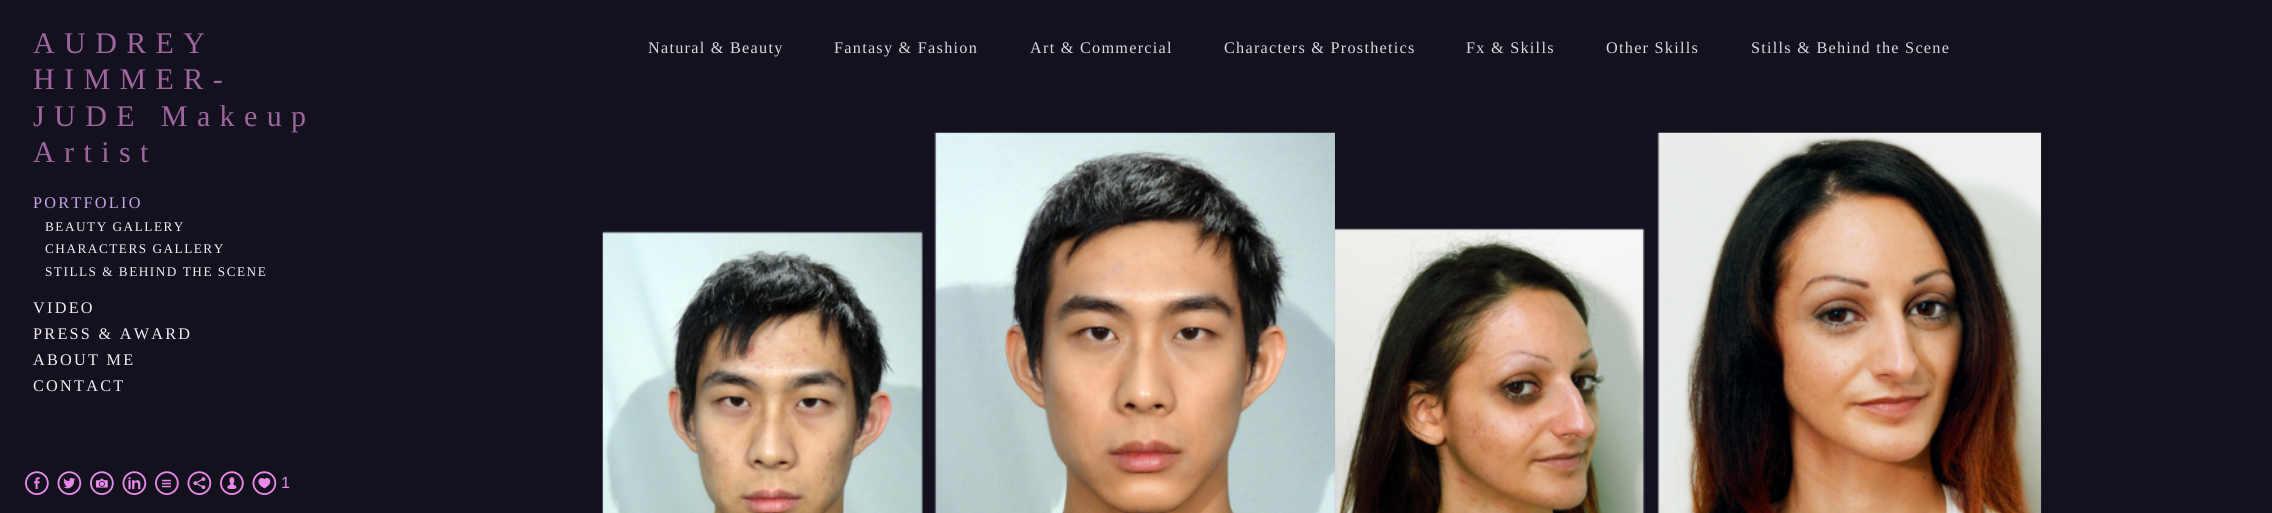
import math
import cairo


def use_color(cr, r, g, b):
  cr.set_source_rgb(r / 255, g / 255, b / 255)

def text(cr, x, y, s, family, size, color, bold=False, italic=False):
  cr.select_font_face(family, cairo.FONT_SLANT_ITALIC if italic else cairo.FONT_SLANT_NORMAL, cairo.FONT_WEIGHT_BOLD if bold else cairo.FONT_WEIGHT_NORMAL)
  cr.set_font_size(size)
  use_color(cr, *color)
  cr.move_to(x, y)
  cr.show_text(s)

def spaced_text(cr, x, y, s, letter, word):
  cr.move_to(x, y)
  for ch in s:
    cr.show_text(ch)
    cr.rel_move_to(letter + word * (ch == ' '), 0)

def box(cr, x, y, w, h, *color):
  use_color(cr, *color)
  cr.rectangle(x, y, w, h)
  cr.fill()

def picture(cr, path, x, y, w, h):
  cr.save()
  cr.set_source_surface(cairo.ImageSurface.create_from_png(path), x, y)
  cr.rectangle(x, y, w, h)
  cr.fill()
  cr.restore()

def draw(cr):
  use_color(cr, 19, 17, 29)
  cr.paint()
  box(cr, 808, 38, 1, 20, 16, 14, 24)
  box(cr, 1004, 38, 1, 20, 16, 14, 24)
  box(cr, 1198, 38, 1, 20, 16, 14, 24)
  box(cr, 1440, 38, 1, 20, 16, 14, 24)
  box(cr, 1580, 38, 1, 20, 16, 14, 24)
  box(cr, 1725, 38, 1, 20, 16, 14, 24)
  picture(cr, "img_01.png", 602, 132, 733, 381)
  picture(cr, "img_02.png", 1335, 132, 707, 381)
  picture(cr, "img_03.png", 25, 471, 24, 24)
  picture(cr, "img_04.png", 57, 471, 25, 24)
  picture(cr, "img_05.png", 90, 471, 24, 24)
  picture(cr, "img_06.png", 122, 471, 25, 24)
  picture(cr, "img_07.png", 155, 471, 24, 24)
  picture(cr, "img_08.png", 187, 471, 25, 24)
  picture(cr, "img_09.png", 220, 471, 24, 24)
  picture(cr, "img_10.png", 252, 471, 25, 24)
  cr.select_font_face("Liberation Serif")
  cr.set_font_size(30)
  use_color(cr, 158, 101, 158)
  spaced_text(cr, 33, 53, "AUDREY", 9.4, 0)
  spaced_text(cr, 33, 89, "HIMMER-", 9.4, 0)
  spaced_text(cr, 33, 126, "JUDE Makeup", 9.4, 0)
  spaced_text(cr, 33, 162, "Artist", 9.4, 0)
  cr.set_font_size(16.25)
  use_color(cr, 200, 162, 235)
  spaced_text(cr, 33, 208, "PORTFOLIO", 2.25, 0)
  cr.set_font_size(13.25)
  use_color(cr, 245, 235, 245)
  spaced_text(cr, 45, 231, "BEAUTY GALLERY", 1.5, 0)
  spaced_text(cr, 45, 253, "CHARACTERS GALLERY", 1.5, 0)
  spaced_text(cr, 45, 276, "STILLS & BEHIND THE SCENE", 1.5, 0)
  cr.set_font_size(16.25)
  spaced_text(cr, 33, 313, "VIDEO", 2.25, 0)
  spaced_text(cr, 33, 339, "PRESS & AWARD", 2.25, 0)
  spaced_text(cr, 33, 365, "ABOUT ME", 2.25, 0)
  spaced_text(cr, 33, 391, "CONTACT", 2.25, 0)
  use_color(cr, 222, 213, 223)
  spaced_text(cr, 648, 53, "Natural & Beauty", 1.25, 0)
  spaced_text(cr, 834, 53, "Fantasy & Fashion", 1.25, 0)
  spaced_text(cr, 1030, 53, "Art & Commercial", 1.25, 0)
  spaced_text(cr, 1224, 53, "Characters & Prosthetics", 1.25, 0)
  spaced_text(cr, 1466, 53, "Fx & Skills", 1.25, 0)
  spaced_text(cr, 1606, 53, "Other Skills", 1.25, 0)
  spaced_text(cr, 1751, 53, "Stills & Behind the Scene", 1.25, 0)
  text(cr, 281, 488, "1", "Liberation Sans", 16.25, (232, 136, 232))


surface = cairo.ImageSurface(cairo.FORMAT_RGB24, 2272, 513)
cr = cairo.Context(surface)
options = cairo.FontOptions()
options.set_hint_metrics(cairo.HINT_METRICS_OFF)
options.set_hint_style(cairo.HINT_STYLE_NONE)
cr.set_font_options(options)
cr.set_miter_limit(4)
draw(cr)
surface.write_to_png("out.png")
